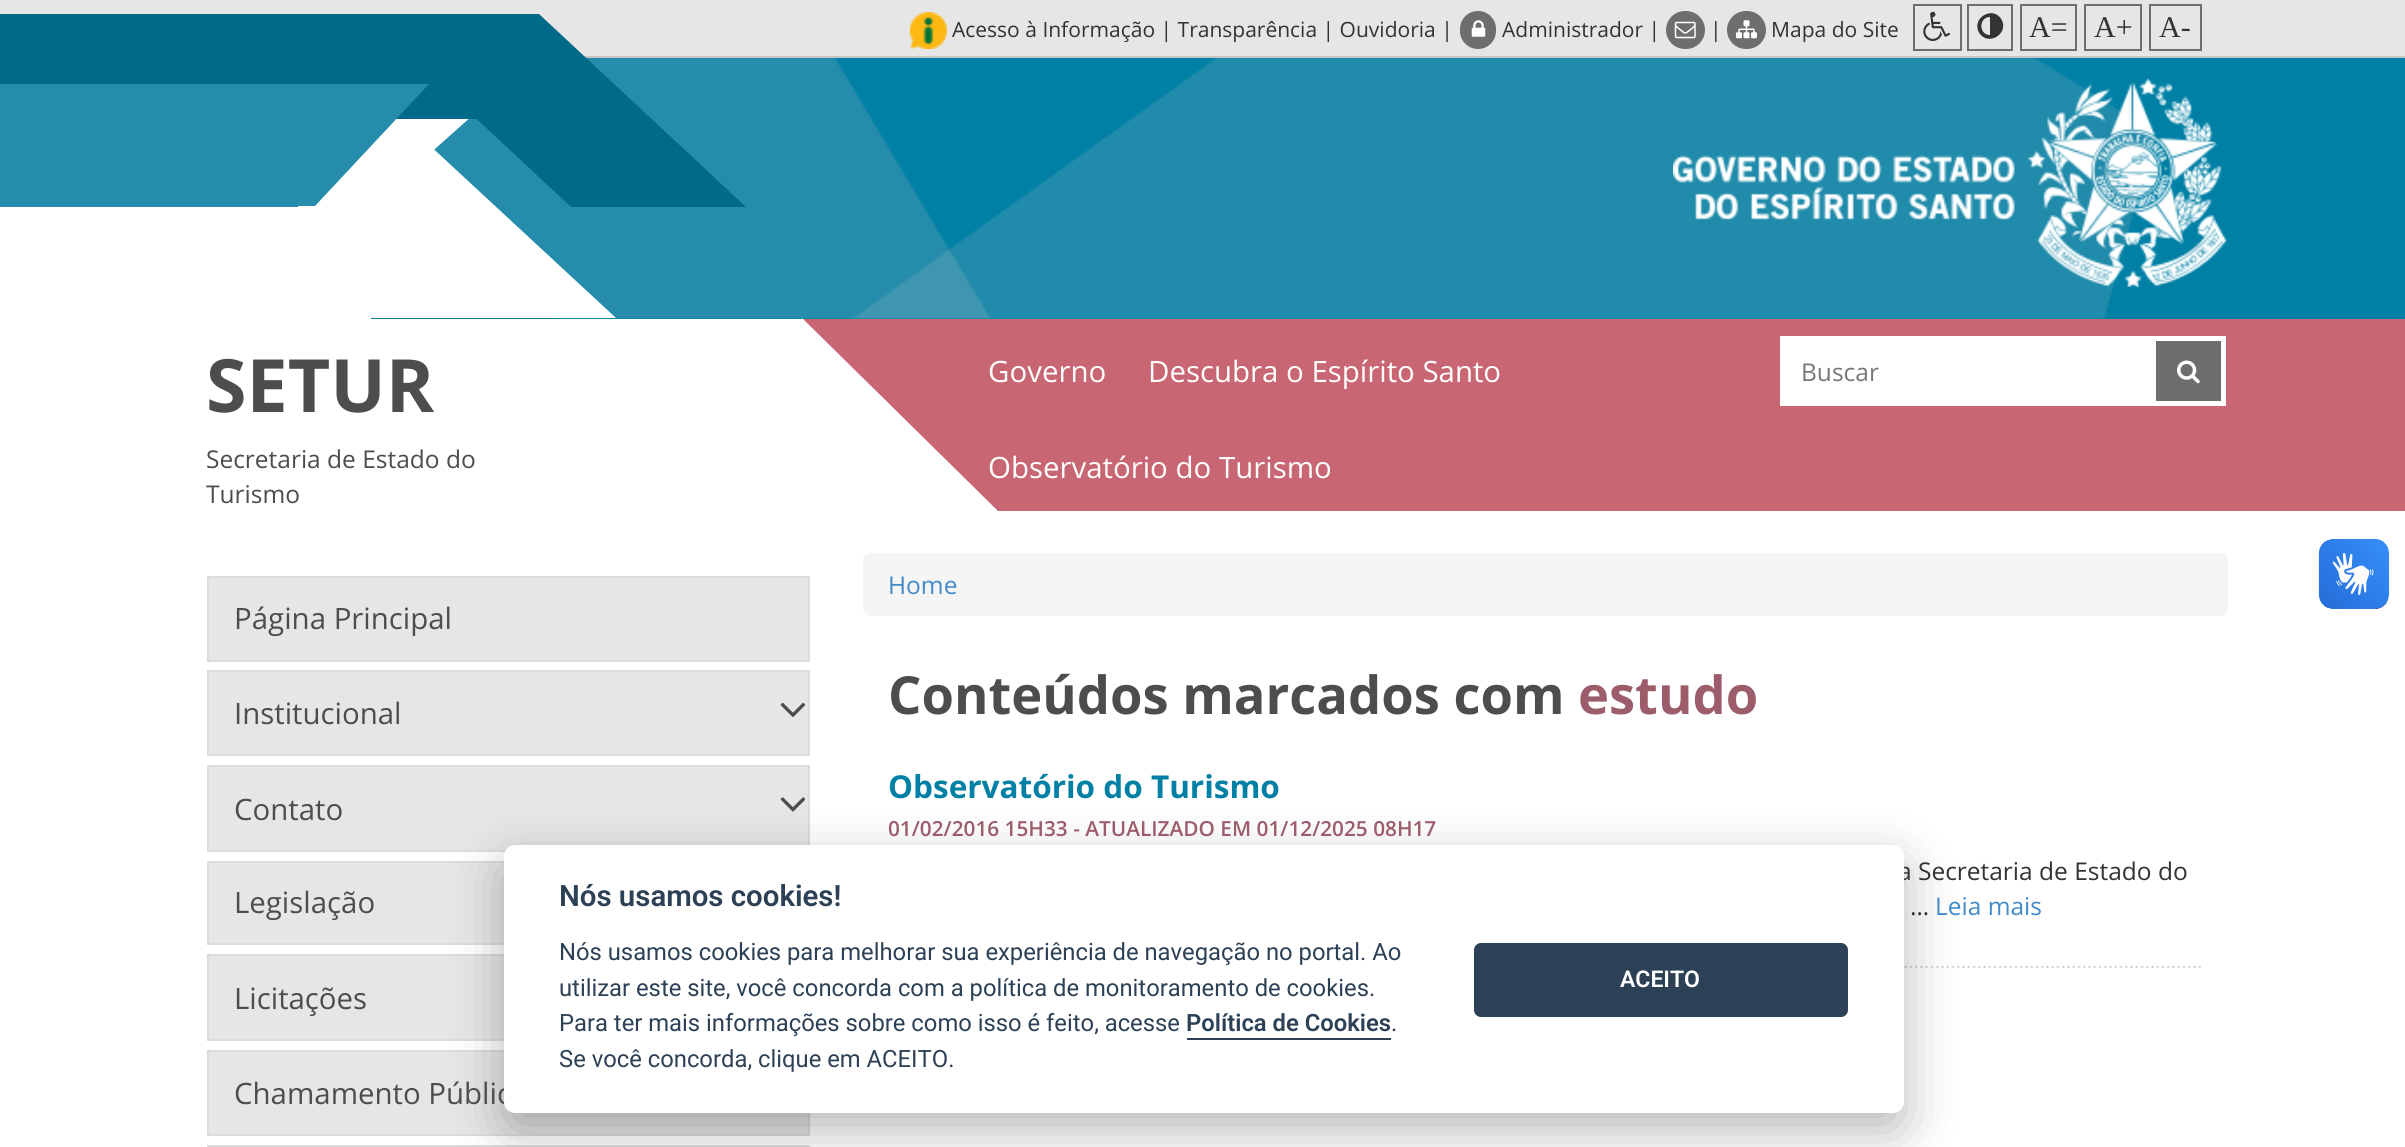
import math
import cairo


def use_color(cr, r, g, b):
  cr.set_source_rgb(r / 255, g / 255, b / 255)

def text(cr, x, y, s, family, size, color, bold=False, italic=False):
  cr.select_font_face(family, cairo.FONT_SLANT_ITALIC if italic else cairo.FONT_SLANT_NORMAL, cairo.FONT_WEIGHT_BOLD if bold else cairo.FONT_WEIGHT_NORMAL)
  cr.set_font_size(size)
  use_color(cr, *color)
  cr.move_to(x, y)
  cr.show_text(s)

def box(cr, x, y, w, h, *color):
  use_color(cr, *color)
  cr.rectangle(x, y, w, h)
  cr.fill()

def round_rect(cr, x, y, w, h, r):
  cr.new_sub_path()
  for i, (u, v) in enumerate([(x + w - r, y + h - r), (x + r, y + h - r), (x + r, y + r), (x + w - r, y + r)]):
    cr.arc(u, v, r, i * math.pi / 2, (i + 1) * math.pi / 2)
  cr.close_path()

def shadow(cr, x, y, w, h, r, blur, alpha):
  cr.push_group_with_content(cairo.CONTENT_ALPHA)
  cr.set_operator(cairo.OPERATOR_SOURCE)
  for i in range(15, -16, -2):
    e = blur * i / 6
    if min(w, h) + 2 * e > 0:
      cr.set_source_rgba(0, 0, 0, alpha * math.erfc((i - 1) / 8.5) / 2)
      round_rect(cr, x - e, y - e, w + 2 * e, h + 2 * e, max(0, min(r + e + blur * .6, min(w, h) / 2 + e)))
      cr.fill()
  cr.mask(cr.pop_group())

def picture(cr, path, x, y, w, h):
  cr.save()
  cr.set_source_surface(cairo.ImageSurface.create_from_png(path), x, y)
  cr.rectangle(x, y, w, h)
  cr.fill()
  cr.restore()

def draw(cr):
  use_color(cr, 255, 255, 255)
  cr.paint()
  box(cr, 371, 58, 2034, 261, 0, 128, 165)
  picture(cr, "img_01.png", 433, 58, 1723, 261)
  use_color(cr, 255, 255, 255)
  cr.new_path()
  cr.move_to(371, 58)
  cr.line_to(537, 58)
  cr.line_to(371, 206)
  cr.close_path()
  cr.fill()
  cr.new_path()
  cr.move_to(616, 318)
  cr.line_to(371, 318)
  cr.line_to(371, 91)
  cr.close_path()
  cr.fill()
  box(cr, 0, 0, 2405, 56, 230, 230, 230)
  box(cr, 0, 14, 477, 105, 0, 106, 136)
  box(cr, 584, 56, 1821, 2, 197, 197, 197)
  use_color(cr, 0, 106, 136)
  cr.new_path()
  cr.move_to(364, 14)
  cr.line_to(539, 14)
  cr.line_to(746, 207)
  cr.line_to(571, 207)
  cr.close_path()
  cr.fill()
  box(cr, 0, 84, 298, 123, 37, 141, 171)
  cr.new_path()
  cr.move_to(131, 84)
  cr.line_to(429, 84)
  cr.line_to(315, 206)
  cr.line_to(131, 206)
  cr.close_path()
  cr.fill()
  picture(cr, "img_02.png", 1673, 78, 553, 209)
  picture(cr, "img_03.png", 910, 12, 37, 37)
  use_color(cr, 110, 110, 110)
  round_rect(cr, 1460, 11, 36, 38, 18)
  cr.fill()
  picture(cr, "img_04.png", 1471, 20, 15, 17)
  round_rect(cr, 1666, 11, 39, 38, 19)
  cr.fill()
  picture(cr, "img_05.png", 1674, 21, 22, 18)
  round_rect(cr, 1727, 11, 39, 38, 19)
  cr.fill()
  picture(cr, "img_06.png", 1736, 20, 21, 19)
  cr.rectangle(1914, 5, 47, 45)
  cr.stroke()
  picture(cr, "img_07.png", 1923, 11, 28, 30)
  cr.rectangle(1968, 5, 44, 45)
  cr.stroke()
  use_color(cr, 51, 51, 51)
  cr.new_path()
  cr.move_to(1990, 35)
  cr.line_to(1990, 17)
  cr.curve_to(1978.5, 17, 1978.5, 35, 1990, 35)
  cr.close_path()
  cr.move_to(2001.5, 19.5)
  cr.curve_to(2009.5, 34, 1987.5, 47, 1979, 32.5)
  cr.curve_to(1971, 18, 1993, 5, 2001.5, 19.5)
  cr.close_path()
  cr.fill()
  cr.rectangle(2021, 5, 55, 45)
  use_color(cr, 110, 110, 110)
  cr.stroke()
  cr.rectangle(2085, 5, 56, 45)
  cr.stroke()
  cr.rectangle(2150, 5, 51, 45)
  cr.stroke()
  use_color(cr, 230, 230, 230)
  cr.rectangle(208, 577, 601, 84)
  cr.fill_preserve()
  use_color(cr, 220, 220, 220)
  cr.stroke()
  use_color(cr, 230, 230, 230)
  cr.rectangle(208, 671, 601, 84)
  cr.fill_preserve()
  use_color(cr, 220, 220, 220)
  cr.stroke()
  picture(cr, "img_08.png", 780, 702, 26, 15)
  use_color(cr, 230, 230, 230)
  cr.rectangle(208, 766, 601, 85)
  cr.fill_preserve()
  use_color(cr, 220, 220, 220)
  cr.stroke()
  picture(cr, "img_09.png", 780, 797, 26, 15)
  box(cr, 209, 863, 295, 80, 230, 230, 230)
  cr.rectangle(208, 862, 601, 82)
  use_color(cr, 220, 220, 220)
  cr.stroke()
  box(cr, 209, 956, 295, 83, 230, 230, 230)
  cr.rectangle(208, 955, 601, 85)
  use_color(cr, 220, 220, 220)
  cr.stroke()
  use_color(cr, 230, 230, 230)
  cr.rectangle(208, 1051, 601, 84)
  cr.fill_preserve()
  use_color(cr, 220, 220, 220)
  cr.stroke()
  cr.rectangle(208, 1146, 601, 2)
  cr.stroke()
  use_color(cr, 245, 245, 245)
  round_rect(cr, 863, 553, 1365, 63, 7)
  cr.fill()
  picture(cr, "img_10.png", 1904, 966, 297, 2)
  box(cr, 803, 319, 1602, 192, 200, 102, 115)
  use_color(cr, 255, 255, 255)
  cr.new_path()
  cr.move_to(998, 511)
  cr.line_to(802, 511)
  cr.line_to(802, 318)
  cr.close_path()
  cr.fill()
  box(cr, 1780, 336, 446, 70, 255, 255, 255)
  box(cr, 2156, 341, 65, 60, 110, 110, 110)
  picture(cr, "img_11.png", 2177, 360, 23, 24)
  picture(cr, "img_12.png", 2318, 539, 71, 70)
  picture(cr, "img_13.png", 2319, 539, 70, 70)
  use_color(cr, 2, 2, 3)
  shadow(cr, 504, 863, 1400, 268, 11, 26, 0.28)
  text(cr, 952, 37, "Acesso à Informação | Transparência | Ouvidoria |", "Open Sans", 21, (51, 51, 51))
  text(cr, 1502, 37, "Administrador |", "Open Sans", 21, (51, 51, 51))
  text(cr, 1710, 37, "|", "Open Sans", 21, (51, 51, 51))
  text(cr, 1771, 37, "Mapa do Site", "Open Sans", 21, (51, 51, 51))
  text(cr, 2029, 37, "A=", "Liberation Serif", 30, (51, 51, 51))
  text(cr, 2094, 37, "A+", "Liberation Serif", 30, (51, 51, 51))
  text(cr, 2159, 37, "A-", "Liberation Serif", 30, (51, 51, 51))
  text(cr, 206, 412, "SETUR", "Open Sans", 73.5, (77, 77, 77), bold=True)
  text(cr, 206, 468, "Secretaria de Estado do", "Open Sans", 24.5, (77, 77, 77))
  text(cr, 206, 503, "Turismo", "Open Sans", 24.5, (77, 77, 77))
  text(cr, 234, 629, "Página Principal", "Open Sans", 29.4, (77, 77, 77))
  text(cr, 234, 724, "Institucional", "Open Sans", 29.4, (77, 77, 77))
  text(cr, 234, 820, "Contato", "Open Sans", 29.4, (77, 77, 77))
  text(cr, 234, 913, "Legislação", "Open Sans", 29.4, (77, 77, 77))
  text(cr, 234, 1009, "Licitações", "Open Sans", 29.4, (77, 77, 77))
  text(cr, 234, 1104, "Chamamento Públic", "Open Sans", 29.4, (77, 77, 77))
  text(cr, 888, 594, "Home", "Open Sans", 24.5, (66, 139, 202))
  text(cr, 888, 714, "Conteúdos marcados com", "Open Sans", 52.5, (77, 77, 77), bold=True)
  text(cr, 1578, 714, "estudo", "Open Sans", 52.5, (156, 92, 106), bold=True)
  text(cr, 888, 798, "Observatório do Turismo", "Open Sans", 31.5, (0, 128, 165), bold=True)
  text(cr, 888, 836, "01/02/2016 15H33 - ATUALIZADO EM 01/12/2025 08H17", "Open Sans SemiBold", 20.8, (156, 92, 106))
  text(cr, 1898, 880, "a Secretaria de Estado do", "Open Sans", 24.5, (51, 51, 51))
  text(cr, 1910, 915, "…", "Open Sans", 24.5, (51, 51, 51))
  text(cr, 1935, 915, "Leia mais", "Open Sans", 24.5, (66, 139, 202))
  text(cr, 988, 382, "Governo", "Open Sans", 29.4, (255, 255, 255))
  text(cr, 1148, 382, "Descubra o Espírito Santo", "Open Sans", 29.4, (255, 255, 255))
  text(cr, 988, 478, "Observatório do Turismo", "Open Sans", 29.4, (255, 255, 255))
  text(cr, 1801, 381, "Buscar", "Open Sans", 24.5, (119, 119, 119))
  use_color(cr, 255, 255, 255)
  round_rect(cr, 504, 845, 1400, 268, 11)
  cr.fill()
  text(cr, 559, 906, "Nós usamos cookies!", "Roboto SemiBold", 29.4, (45, 65, 86))
  text(cr, 559, 960, "Nós usamos cookies para melhorar sua experiência de navegação no portal. Ao", "Roboto", 23.8, (45, 65, 86))
  text(cr, 559, 996, "utilizar este site, você concorda com a política de monitoramento de cookies.", "Roboto", 23.8, (45, 65, 86))
  text(cr, 559, 1031, "Para ter mais informações sobre como isso é feito, acesse", "Roboto", 23.8, (45, 65, 86))
  text(cr, 1186, 1031, "Política de Cookies", "Roboto SemiBold", 23.8, (45, 65, 86))
  box(cr, 1187, 1038, 204, 2, 45, 65, 86)
  text(cr, 1391, 1031, ".", "Roboto", 23.8, (45, 65, 86))
  text(cr, 559, 1067, "Se você concorda, clique em ACEITO.", "Roboto", 23.8, (45, 65, 86))
  round_rect(cr, 1474, 943, 374, 74, 7)
  cr.fill()
  text(cr, 1620, 987, "ACEITO", "Roboto SemiBold", 23, (255, 255, 255))


surface = cairo.ImageSurface(cairo.FORMAT_RGB24, 2405, 1147)
cr = cairo.Context(surface)
options = cairo.FontOptions()
options.set_hint_metrics(cairo.HINT_METRICS_OFF)
options.set_hint_style(cairo.HINT_STYLE_NONE)
cr.set_font_options(options)
cr.set_miter_limit(4)
draw(cr)
surface.write_to_png("out.png")
